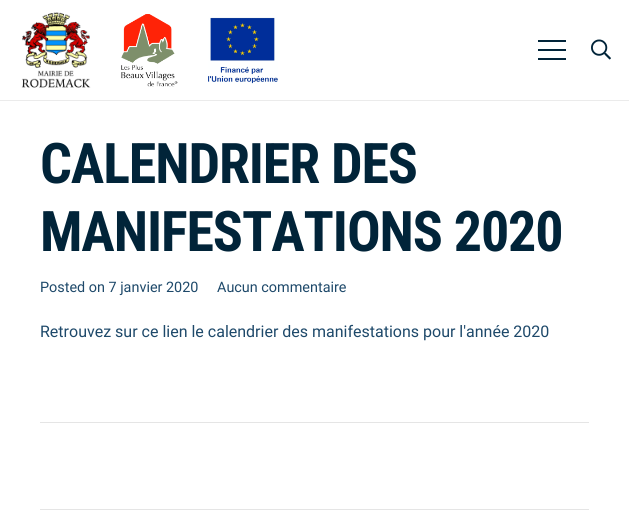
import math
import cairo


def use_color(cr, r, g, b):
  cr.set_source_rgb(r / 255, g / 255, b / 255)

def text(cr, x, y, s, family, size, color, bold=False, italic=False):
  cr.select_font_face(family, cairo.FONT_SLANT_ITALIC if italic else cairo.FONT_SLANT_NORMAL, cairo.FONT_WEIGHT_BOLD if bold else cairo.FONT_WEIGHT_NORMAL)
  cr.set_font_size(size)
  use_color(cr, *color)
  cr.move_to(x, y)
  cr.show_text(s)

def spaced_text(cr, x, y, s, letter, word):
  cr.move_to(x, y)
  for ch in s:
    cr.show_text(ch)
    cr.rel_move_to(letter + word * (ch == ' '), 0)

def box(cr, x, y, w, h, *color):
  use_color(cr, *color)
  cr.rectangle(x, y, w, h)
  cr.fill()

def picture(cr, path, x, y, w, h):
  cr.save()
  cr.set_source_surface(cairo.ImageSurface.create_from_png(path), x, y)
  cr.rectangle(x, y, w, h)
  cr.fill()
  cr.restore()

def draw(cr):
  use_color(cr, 255, 255, 255)
  cr.paint()
  box(cr, 0, 100, 629, 1, 235, 235, 235)
  picture(cr, "img_01.png", 21, 12, 70, 76)
  picture(cr, "img_02.png", 121, 14, 57, 73)
  picture(cr, "img_03.png", 208, 17, 70, 67)
  box(cr, 538, 49, 28, 2, 1, 36, 57)
  box(cr, 538, 40, 28, 2, 1, 36, 57)
  box(cr, 538, 58, 28, 2, 1, 36, 57)
  picture(cr, "img_04.png", 591, 39, 20, 21)
  box(cr, 40, 422, 549, 1, 229, 229, 229)
  box(cr, 40, 509, 549, 1, 229, 229, 229)
  cr.select_font_face("Roboto Condensed", cairo.FONT_SLANT_NORMAL, cairo.FONT_WEIGHT_BOLD)
  cr.set_font_size(56)
  use_color(cr, 1, 36, 57)
  spaced_text(cr, 40, 183, "CALENDRIER DES", -1.1, 0)
  spaced_text(cr, 40, 251, "MANIFESTATIONS 2020", -1.1, 0)
  text(cr, 40, 292, "Posted on 7 janvier 2020", "Roboto", 14.4, (30, 73, 106))
  text(cr, 217, 292, "Aucun commentaire", "Roboto", 14.4, (30, 73, 106))
  text(cr, 40, 337, "Retrouvez sur ce lien le calendrier des manifestations pour l'année 2020", "Roboto", 16, (30, 73, 106))


surface = cairo.ImageSurface(cairo.FORMAT_RGB24, 629, 522)
cr = cairo.Context(surface)
options = cairo.FontOptions()
options.set_hint_metrics(cairo.HINT_METRICS_OFF)
options.set_hint_style(cairo.HINT_STYLE_NONE)
cr.set_font_options(options)
cr.set_miter_limit(4)
draw(cr)
surface.write_to_png("out.png")
